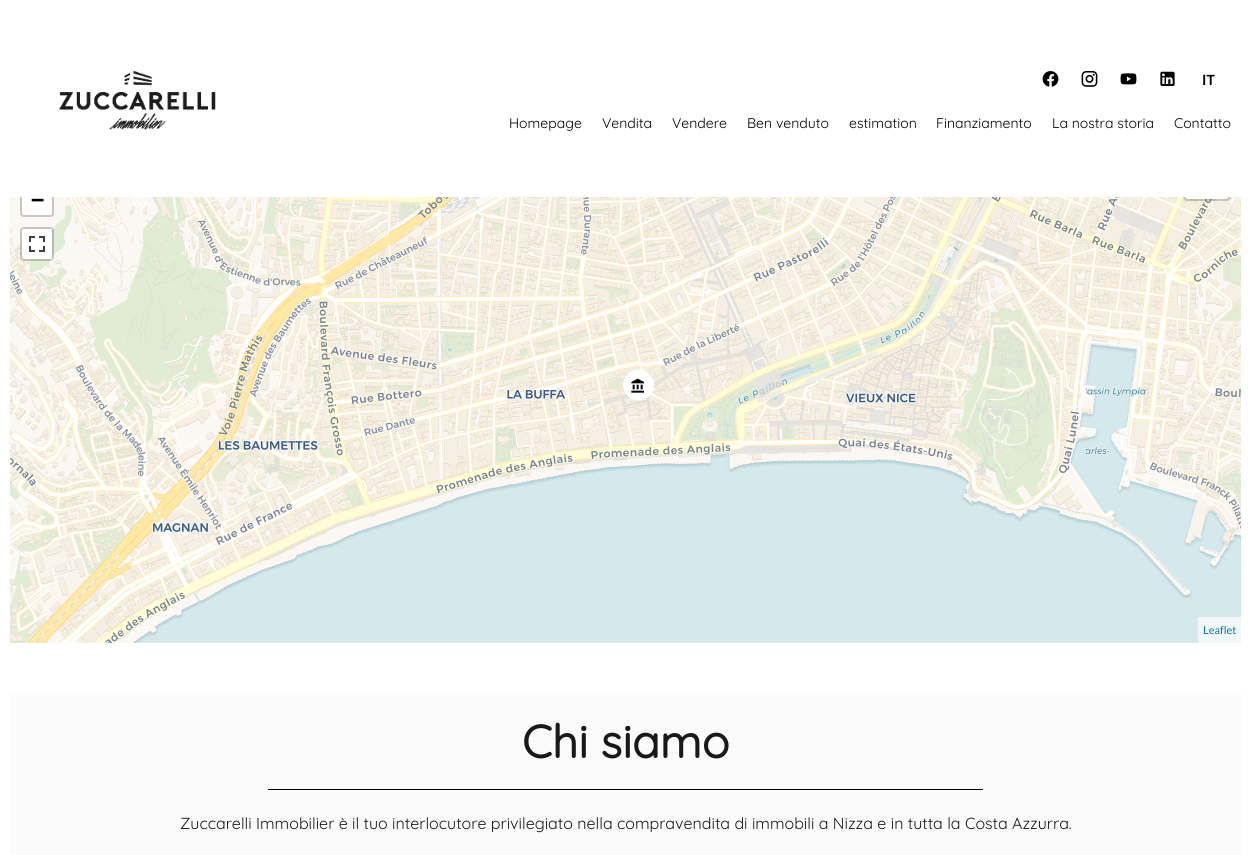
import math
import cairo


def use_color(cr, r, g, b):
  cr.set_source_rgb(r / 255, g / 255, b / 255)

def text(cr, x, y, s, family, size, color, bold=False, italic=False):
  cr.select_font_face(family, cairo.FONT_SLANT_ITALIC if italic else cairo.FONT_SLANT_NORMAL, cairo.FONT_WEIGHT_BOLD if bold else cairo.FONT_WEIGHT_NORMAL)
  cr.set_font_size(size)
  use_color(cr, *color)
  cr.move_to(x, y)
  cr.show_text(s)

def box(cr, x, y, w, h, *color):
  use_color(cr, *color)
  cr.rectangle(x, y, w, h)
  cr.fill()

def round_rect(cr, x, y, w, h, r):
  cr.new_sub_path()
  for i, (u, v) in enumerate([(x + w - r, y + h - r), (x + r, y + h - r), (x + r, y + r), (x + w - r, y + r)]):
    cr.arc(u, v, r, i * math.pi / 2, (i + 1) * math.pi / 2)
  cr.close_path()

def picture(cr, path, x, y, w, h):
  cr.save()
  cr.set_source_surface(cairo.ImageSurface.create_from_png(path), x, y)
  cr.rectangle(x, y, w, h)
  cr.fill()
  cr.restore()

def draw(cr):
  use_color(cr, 255, 255, 255)
  cr.paint()
  picture(cr, "img_06.png", 10, 197, 52, 100)
  round_rect(cr, 21, 154, 32, 62, 3)
  cr.set_source_rgba(0, 0, 0, 0.2)
  cr.stroke()
  use_color(cr, 255, 255, 255)
  cr.new_path()
  cr.move_to(22, 185)
  cr.line_to(52, 185)
  cr.line_to(52, 213)
  cr.curve_to(52, 214, 51, 215, 50, 215)
  cr.line_to(24, 215)
  cr.curve_to(23, 215, 22, 214, 22, 213)
  cr.close_path()
  cr.fill()
  picture(cr, "img_11.png", 1086, 197, 155, 100)
  round_rect(cr, 1185, 155, 44, 44, 3)
  cr.fill()
  round_rect(cr, 1184, 154, 46, 46, 4)
  cr.set_source_rgba(0, 0, 0, 0.2)
  cr.stroke()
  box(cr, 20, 153, 1211, 44, 255, 255, 255)
  picture(cr, "img_01.png", 59, 70, 157, 60)
  picture(cr, "img_02.png", 1042, 71, 17, 16)
  picture(cr, "img_03.png", 1081, 71, 17, 16)
  picture(cr, "img_04.png", 1120, 73, 17, 12)
  picture(cr, "img_05.png", 1160, 71, 15, 15)
  picture(cr, "img_07.png", 62, 197, 256, 100)
  picture(cr, "img_08.png", 318, 197, 256, 100)
  picture(cr, "img_09.png", 574, 197, 256, 100)
  picture(cr, "img_10.png", 830, 197, 256, 100)
  picture(cr, "img_12.png", 10, 297, 52, 256)
  picture(cr, "img_13.png", 62, 297, 256, 256)
  picture(cr, "img_14.png", 318, 297, 256, 256)
  picture(cr, "img_15.png", 574, 297, 256, 256)
  picture(cr, "img_16.png", 830, 297, 256, 256)
  picture(cr, "img_17.png", 1086, 297, 155, 256)
  picture(cr, "img_18.png", 10, 553, 52, 90)
  picture(cr, "img_19.png", 62, 553, 256, 90)
  box(cr, 318, 553, 768, 90, 213, 232, 235)
  picture(cr, "img_20.png", 1086, 553, 155, 90)
  use_color(cr, 255, 255, 255)
  cr.new_path()
  cr.move_to(638.5, 369.5)
  cr.curve_to(620, 369.5, 617.5, 396.5, 635.5, 400)
  cr.curve_to(639.5, 401, 643.5, 400, 647, 398)
  cr.curve_to(651.5, 395, 654, 390, 654, 385)
  cr.curve_to(654, 376.5, 647, 369.5, 638.5, 369.5)
  cr.close_path()
  cr.fill()
  picture(cr, "img_21.png", 631, 378, 13, 15)
  round_rect(cr, 21, 228, 32, 32, 3)
  cr.set_source_rgba(0, 0, 0, 0.2)
  cr.stroke()
  use_color(cr, 255, 255, 255)
  round_rect(cr, 22, 229, 30, 30, 2)
  cr.fill()
  picture(cr, "img_22.png", 29, 236, 16, 16)
  box(cr, 1198, 617, 43, 26, 242, 248, 249)
  box(cr, 10, 693, 1231, 162, 251, 251, 251)
  box(cr, 268, 789, 715, 1, 0, 0, 0)
  text(cr, 1202, 85, "IT", "Lato", 14, (0, 0, 0), bold=True)
  text(cr, 509, 128, "Homepage", "Quicksand Light", 14, (0, 0, 0))
  text(cr, 602, 128, "Vendita", "Quicksand Light", 14, (0, 0, 0))
  text(cr, 672, 128, "Vendere", "Quicksand Light", 14, (0, 0, 0))
  text(cr, 747, 128, "Ben venduto", "Quicksand Light", 14, (0, 0, 0))
  text(cr, 849, 128, "estimation", "Quicksand Light", 14, (0, 0, 0))
  text(cr, 936, 128, "Finanziamento", "Quicksand Light", 14, (0, 0, 0))
  text(cr, 1052, 128, "La nostra storia", "Quicksand Light", 14, (0, 0, 0))
  text(cr, 1174, 128, "Contatto", "Quicksand Light", 14, (0, 0, 0))
  text(cr, 31, 207, "−", "DejaVu Sans Mono", 22, (0, 0, 0), bold=True)
  text(cr, 1203, 634, "Leaflet", "Lato", 11, (0, 120, 168))
  text(cr, 522, 758, "Chi siamo", "Quicksand", 46, (25, 25, 25), bold=True)
  text(cr, 180, 829, "Zuccarelli Immobilier è il tuo interlocutore privilegiato nella compravendita di immobili a Nizza e in tutta la Costa Azzurra.", "Quicksand Light", 16, (25, 25, 25))


surface = cairo.ImageSurface(cairo.FORMAT_RGB24, 1251, 855)
cr = cairo.Context(surface)
options = cairo.FontOptions()
options.set_hint_metrics(cairo.HINT_METRICS_OFF)
options.set_hint_style(cairo.HINT_STYLE_NONE)
cr.set_font_options(options)
cr.set_miter_limit(4)
draw(cr)
surface.write_to_png("out.png")
